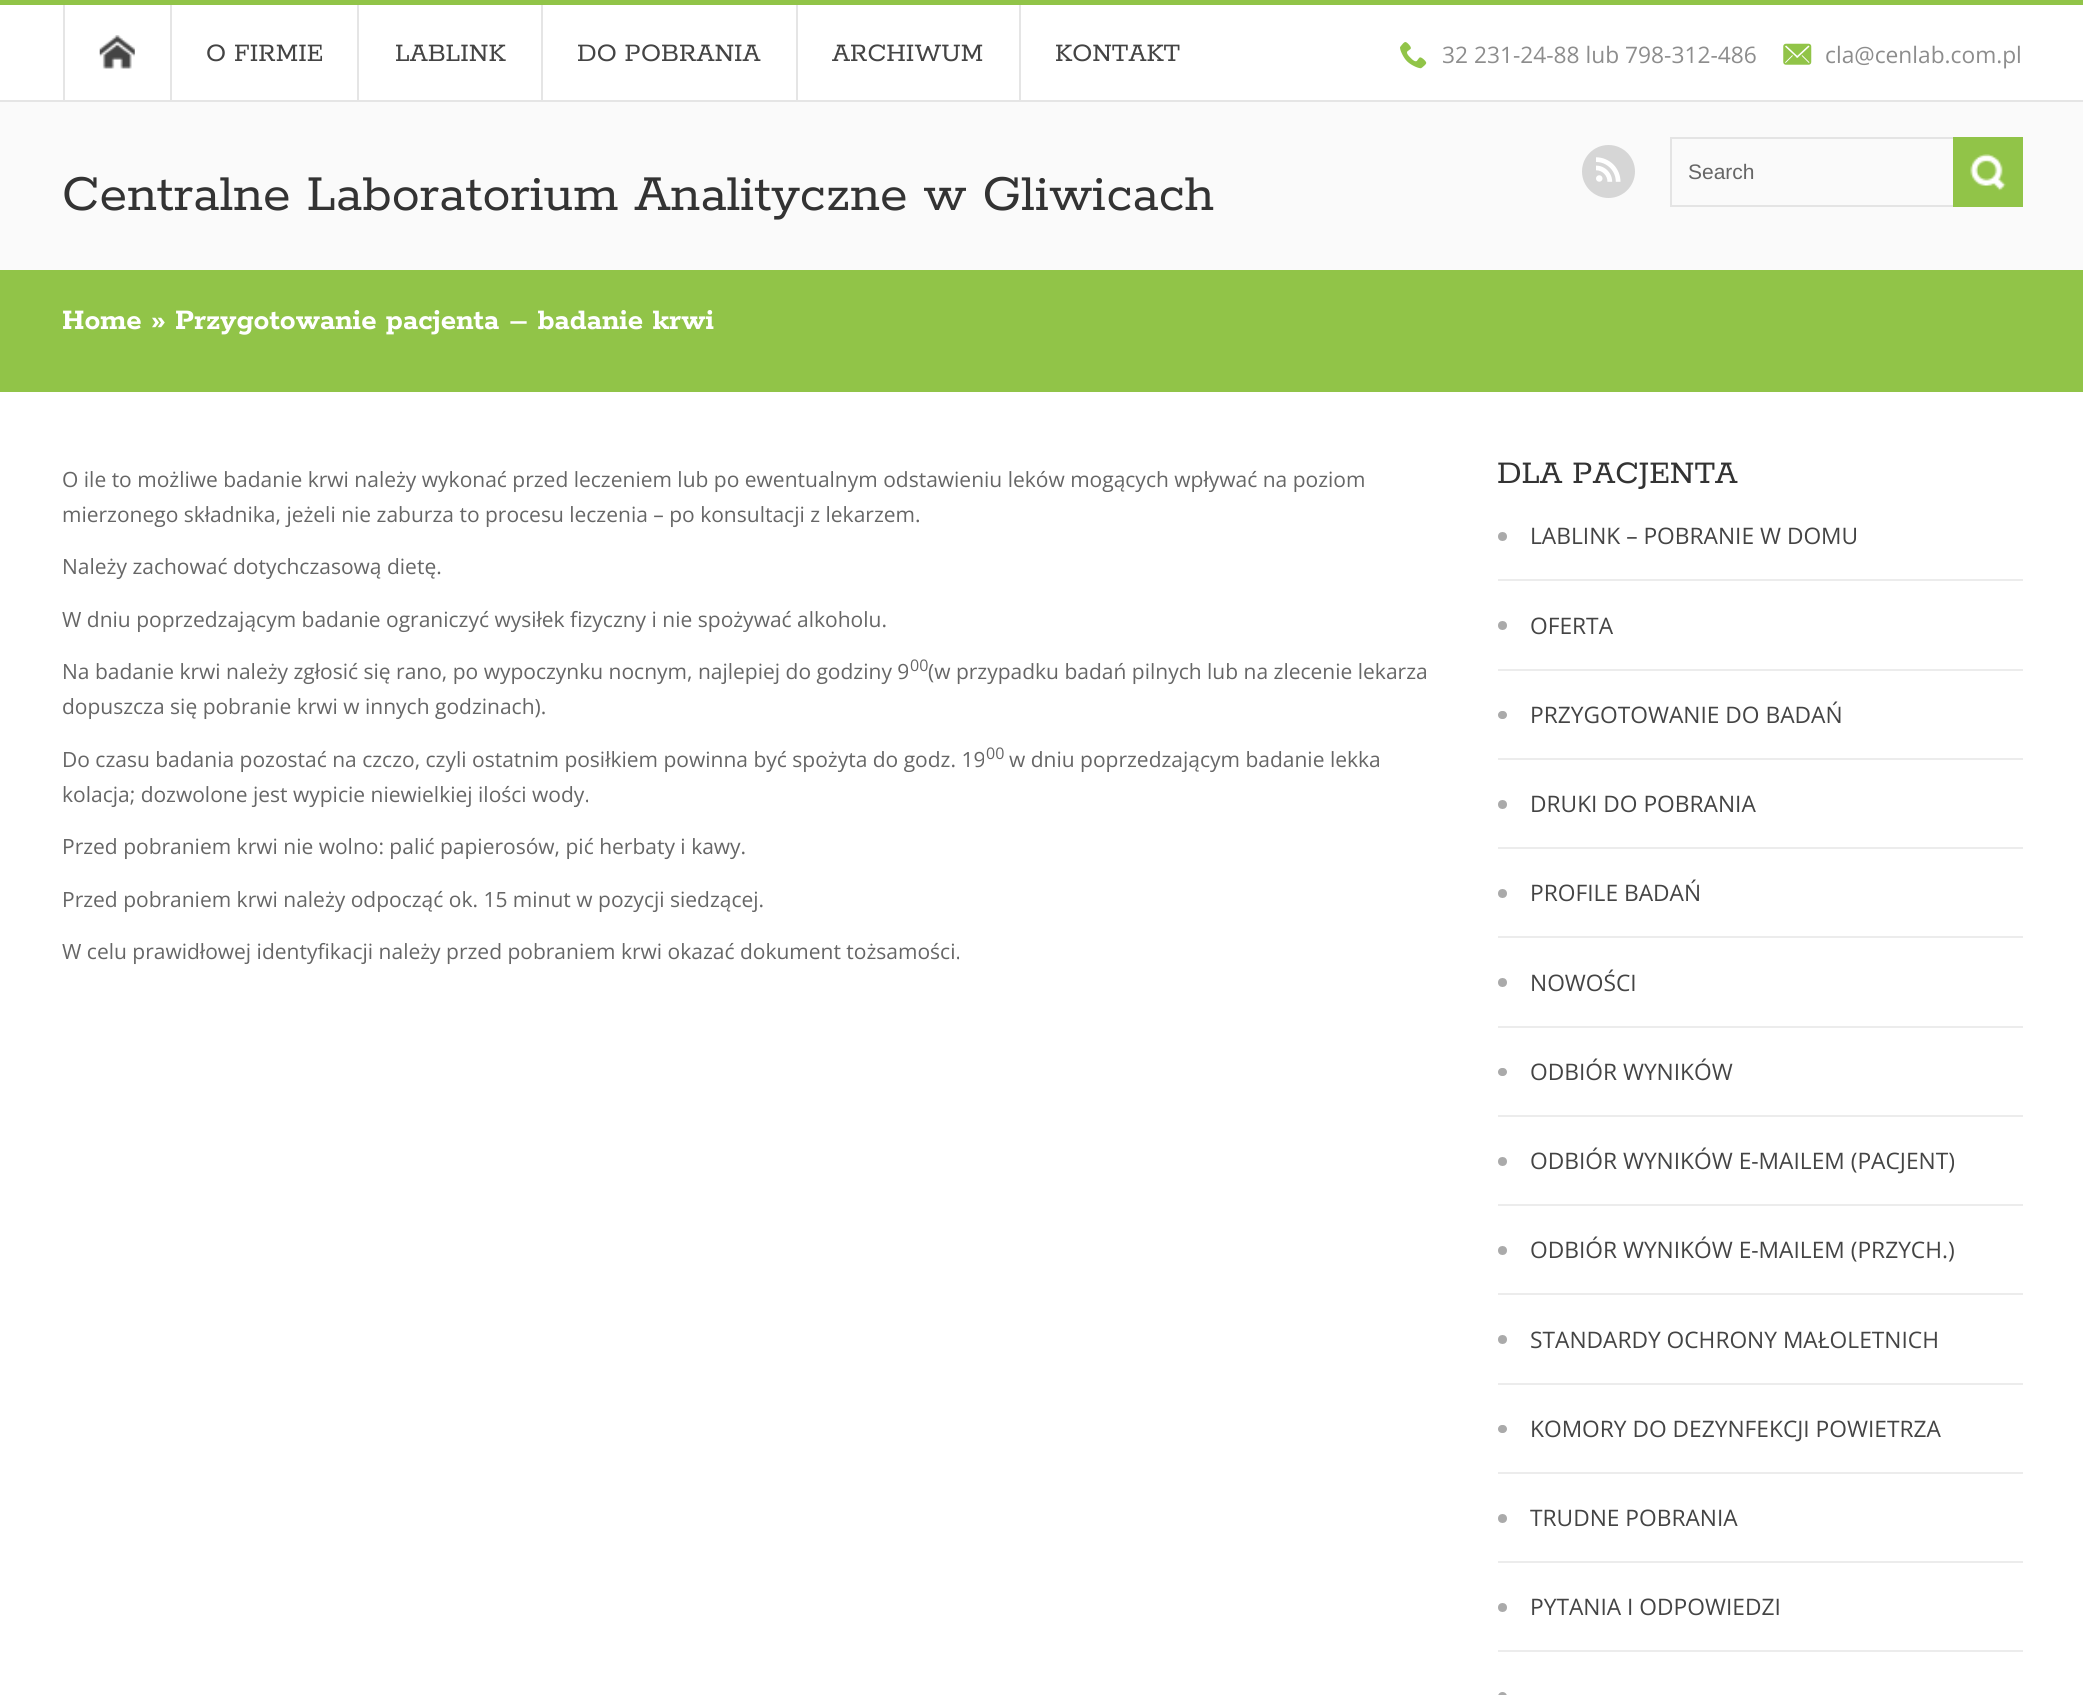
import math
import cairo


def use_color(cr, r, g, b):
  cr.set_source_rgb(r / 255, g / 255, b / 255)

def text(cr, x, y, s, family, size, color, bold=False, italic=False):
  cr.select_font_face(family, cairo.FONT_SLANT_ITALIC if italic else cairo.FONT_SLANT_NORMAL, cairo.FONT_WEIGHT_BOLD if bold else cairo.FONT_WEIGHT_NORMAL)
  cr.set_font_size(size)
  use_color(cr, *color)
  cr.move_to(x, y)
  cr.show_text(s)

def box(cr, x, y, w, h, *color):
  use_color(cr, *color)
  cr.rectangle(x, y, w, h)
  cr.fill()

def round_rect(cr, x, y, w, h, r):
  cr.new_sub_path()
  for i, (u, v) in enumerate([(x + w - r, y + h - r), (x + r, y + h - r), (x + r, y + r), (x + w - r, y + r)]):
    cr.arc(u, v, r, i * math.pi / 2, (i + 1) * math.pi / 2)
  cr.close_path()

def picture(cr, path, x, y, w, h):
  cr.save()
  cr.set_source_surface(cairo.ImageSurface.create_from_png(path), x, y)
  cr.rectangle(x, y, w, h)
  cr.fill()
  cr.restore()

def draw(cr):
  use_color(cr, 255, 255, 255)
  cr.paint()
  box(cr, 0, 0, 2083, 5, 145, 196, 72)
  box(cr, 0, 100, 2083, 2, 229, 229, 229)
  picture(cr, "img_01.png", 99, 35, 36, 34)
  box(cr, 63, 5, 2, 95, 229, 229, 229)
  box(cr, 170, 5, 2, 95, 229, 229, 229)
  box(cr, 357, 5, 2, 95, 229, 229, 229)
  box(cr, 541, 5, 2, 95, 229, 229, 229)
  box(cr, 796, 5, 2, 95, 229, 229, 229)
  box(cr, 1019, 5, 2, 95, 229, 229, 229)
  picture(cr, "img_02.png", 1400, 42, 27, 27)
  picture(cr, "img_03.png", 1783, 43, 29, 22)
  box(cr, 0, 102, 2083, 168, 250, 250, 250)
  use_color(cr, 214, 214, 214)
  cr.arc(1608.5, 171.5, 26.5, 0, 2 * math.pi)
  cr.fill()
  picture(cr, "img_04.png", 1596, 157, 25, 25)
  cr.rectangle(1671, 138, 351, 68)
  use_color(cr, 228, 228, 228)
  cr.stroke()
  box(cr, 1953, 137, 70, 70, 145, 196, 72)
  picture(cr, "img_05.png", 1970, 154, 36, 37)
  box(cr, 0, 270, 2083, 122, 145, 196, 72)
  box(cr, 1498, 579, 525, 2, 236, 236, 236)
  use_color(cr, 170, 170, 170)
  cr.arc(1502.5, 536.5, 4.5, 0, 2 * math.pi)
  cr.fill()
  box(cr, 1498, 669, 525, 2, 236, 236, 236)
  use_color(cr, 170, 170, 170)
  cr.arc(1502.5, 625.5, 4.5, 0, 2 * math.pi)
  cr.fill()
  box(cr, 1498, 758, 525, 2, 236, 236, 236)
  use_color(cr, 170, 170, 170)
  round_rect(cr, 1498, 711, 9, 8, 4)
  cr.fill()
  box(cr, 1498, 847, 525, 2, 236, 236, 236)
  use_color(cr, 170, 170, 170)
  cr.arc(1502.5, 804.5, 4.5, 0, 2 * math.pi)
  cr.fill()
  box(cr, 1498, 936, 525, 2, 236, 236, 236)
  use_color(cr, 170, 170, 170)
  cr.arc(1502.5, 893.5, 4.5, 0, 2 * math.pi)
  cr.fill()
  box(cr, 1498, 1026, 525, 2, 236, 236, 236)
  use_color(cr, 170, 170, 170)
  cr.arc(1502.5, 982.5, 4.5, 0, 2 * math.pi)
  cr.fill()
  box(cr, 1498, 1115, 525, 2, 236, 236, 236)
  use_color(cr, 170, 170, 170)
  round_rect(cr, 1498, 1068, 9, 8, 4)
  cr.fill()
  box(cr, 1498, 1204, 525, 2, 236, 236, 236)
  use_color(cr, 170, 170, 170)
  cr.arc(1502.5, 1161.5, 4.5, 0, 2 * math.pi)
  cr.fill()
  box(cr, 1498, 1293, 525, 2, 236, 236, 236)
  use_color(cr, 170, 170, 170)
  cr.arc(1502.5, 1250.5, 4.5, 0, 2 * math.pi)
  cr.fill()
  box(cr, 1498, 1383, 525, 2, 236, 236, 236)
  use_color(cr, 170, 170, 170)
  cr.arc(1502.5, 1339.5, 4.5, 0, 2 * math.pi)
  cr.fill()
  box(cr, 1498, 1472, 525, 2, 236, 236, 236)
  use_color(cr, 170, 170, 170)
  round_rect(cr, 1498, 1425, 9, 8, 4)
  cr.fill()
  box(cr, 1498, 1561, 525, 2, 236, 236, 236)
  use_color(cr, 170, 170, 170)
  cr.arc(1502.5, 1518.5, 4.5, 0, 2 * math.pi)
  cr.fill()
  box(cr, 1498, 1650, 525, 2, 236, 236, 236)
  use_color(cr, 170, 170, 170)
  cr.arc(1502.5, 1607.5, 4.5, 0, 2 * math.pi)
  cr.fill()
  round_rect(cr, 1498, 1692, 9, 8, 4.5)
  cr.fill()
  text(cr, 206, 61, "O FIRMIE", "Rokkitt", 28, (68, 68, 68))
  text(cr, 395, 61, "LABLINK", "Rokkitt", 28, (68, 68, 68))
  text(cr, 577, 61, "DO POBRANIA", "Rokkitt", 28, (68, 68, 68))
  text(cr, 832, 61, "ARCHIWUM", "Rokkitt", 28, (68, 68, 68))
  text(cr, 1055, 61, "KONTAKT", "Rokkitt", 28, (68, 68, 68))
  text(cr, 1442, 63, "32 231-24-88 lub 798-312-486", "Open Sans", 22.75, (141, 141, 141))
  text(cr, 1825, 63, "cla@cenlab.com.pl", "Open Sans", 22.75, (141, 141, 141))
  text(cr, 1688, 179, "Search", "Liberation Sans", 21, (102, 102, 102))
  text(cr, 62, 210, "Centralne Laboratorium Analityczne w Gliwicach", "Rokkitt", 56, (51, 51, 51))
  text(cr, 62, 329, "Home » Przygotowanie pacjenta – badanie krwi", "Rokkitt", 31.5, (255, 255, 255), bold=True)
  text(cr, 62, 487, "O ile to możliwe badanie krwi należy wykonać przed leczeniem lub po ewentualnym odstawieniu leków mogących wpływać na poziom", "Open Sans", 21, (102, 102, 102))
  text(cr, 62, 522, "mierzonego składnika, jeżeli nie zaburza to procesu leczenia – po konsultacji z lekarzem.", "Open Sans", 21, (102, 102, 102))
  text(cr, 62, 574, "Należy zachować dotychczasową dietę.", "Open Sans", 21, (102, 102, 102))
  text(cr, 62, 627, "W dniu poprzedzającym badanie ograniczyć wysiłek fizyczny i nie spożywać alkoholu.", "Open Sans", 21, (102, 102, 102))
  text(cr, 62, 679, "Na badanie krwi należy zgłosić się rano, po wypoczynku nocnym, najlepiej do godziny 9", "Open Sans", 21, (102, 102, 102))
  text(cr, 910, 671, "00", "Open Sans", 16, (102, 102, 102))
  text(cr, 928, 679, "(w przypadku badań pilnych lub na zlecenie lekarza", "Open Sans", 21, (102, 102, 102))
  text(cr, 62, 714, "dopuszcza się pobranie krwi w innych godzinach).", "Open Sans", 21, (102, 102, 102))
  text(cr, 62, 767, "Do czasu badania pozostać na czczo, czyli ostatnim posiłkiem powinna być spożyta do godz. 19", "Open Sans", 21, (102, 102, 102))
  text(cr, 986, 759, "00", "Open Sans", 16, (102, 102, 102))
  text(cr, 1009, 767, "w dniu poprzedzającym badanie lekka", "Open Sans", 21, (102, 102, 102))
  text(cr, 62, 802, "kolacja; dozwolone jest wypicie niewielkiej ilości wody.", "Open Sans", 21, (102, 102, 102))
  text(cr, 62, 854, "Przed pobraniem krwi nie wolno: palić papierosów, pić herbaty i kawy.", "Open Sans", 21, (102, 102, 102))
  text(cr, 62, 907, "Przed pobraniem krwi należy odpocząć ok. 15 minut w pozycji siedzącej.", "Open Sans", 21, (102, 102, 102))
  text(cr, 62, 959, "W celu prawidłowej identyfikacji należy przed pobraniem krwi okazać dokument tożsamości.", "Open Sans", 21, (102, 102, 102))
  text(cr, 1497, 483, "DLA PACJENTA", "Rokkitt", 35, (51, 51, 51))
  text(cr, 1530, 544, "LABLINK – POBRANIE W DOMU", "Open Sans", 22.75, (68, 68, 68))
  text(cr, 1530, 634, "OFERTA", "Open Sans", 22.75, (68, 68, 68))
  text(cr, 1530, 723, "PRZYGOTOWANIE DO BADAŃ", "Open Sans", 22.75, (68, 68, 68))
  text(cr, 1530, 812, "DRUKI DO POBRANIA", "Open Sans", 22.75, (68, 68, 68))
  text(cr, 1530, 901, "PROFILE BADAŃ", "Open Sans", 22.75, (68, 68, 68))
  text(cr, 1530, 991, "NOWOŚCI", "Open Sans", 22.75, (68, 68, 68))
  text(cr, 1530, 1080, "ODBIÓR WYNIKÓW", "Open Sans", 22.75, (68, 68, 68))
  text(cr, 1530, 1169, "ODBIÓR WYNIKÓW E-MAILEM (PACJENT)", "Open Sans", 22.75, (68, 68, 68))
  text(cr, 1530, 1258, "ODBIÓR WYNIKÓW E-MAILEM (PRZYCH.)", "Open Sans", 22.75, (68, 68, 68))
  text(cr, 1530, 1348, "STANDARDY OCHRONY MAŁOLETNICH", "Open Sans", 22.75, (68, 68, 68))
  text(cr, 1530, 1437, "KOMORY DO DEZYNFEKCJI POWIETRZA", "Open Sans", 22.75, (68, 68, 68))
  text(cr, 1530, 1526, "TRUDNE POBRANIA", "Open Sans", 22.75, (68, 68, 68))
  text(cr, 1530, 1615, "PYTANIA I ODPOWIEDZI", "Open Sans", 22.75, (68, 68, 68))


surface = cairo.ImageSurface(cairo.FORMAT_RGB24, 2083, 1695)
cr = cairo.Context(surface)
options = cairo.FontOptions()
options.set_hint_metrics(cairo.HINT_METRICS_OFF)
options.set_hint_style(cairo.HINT_STYLE_NONE)
cr.set_font_options(options)
cr.set_miter_limit(4)
draw(cr)
surface.write_to_png("out.png")
